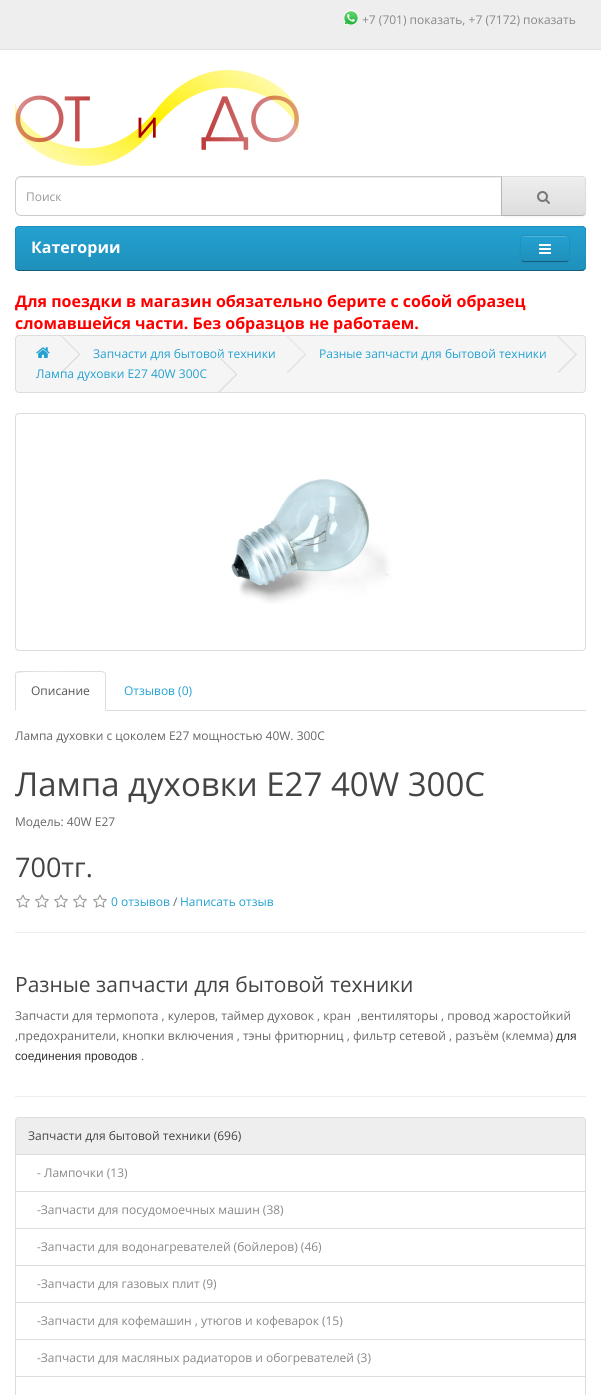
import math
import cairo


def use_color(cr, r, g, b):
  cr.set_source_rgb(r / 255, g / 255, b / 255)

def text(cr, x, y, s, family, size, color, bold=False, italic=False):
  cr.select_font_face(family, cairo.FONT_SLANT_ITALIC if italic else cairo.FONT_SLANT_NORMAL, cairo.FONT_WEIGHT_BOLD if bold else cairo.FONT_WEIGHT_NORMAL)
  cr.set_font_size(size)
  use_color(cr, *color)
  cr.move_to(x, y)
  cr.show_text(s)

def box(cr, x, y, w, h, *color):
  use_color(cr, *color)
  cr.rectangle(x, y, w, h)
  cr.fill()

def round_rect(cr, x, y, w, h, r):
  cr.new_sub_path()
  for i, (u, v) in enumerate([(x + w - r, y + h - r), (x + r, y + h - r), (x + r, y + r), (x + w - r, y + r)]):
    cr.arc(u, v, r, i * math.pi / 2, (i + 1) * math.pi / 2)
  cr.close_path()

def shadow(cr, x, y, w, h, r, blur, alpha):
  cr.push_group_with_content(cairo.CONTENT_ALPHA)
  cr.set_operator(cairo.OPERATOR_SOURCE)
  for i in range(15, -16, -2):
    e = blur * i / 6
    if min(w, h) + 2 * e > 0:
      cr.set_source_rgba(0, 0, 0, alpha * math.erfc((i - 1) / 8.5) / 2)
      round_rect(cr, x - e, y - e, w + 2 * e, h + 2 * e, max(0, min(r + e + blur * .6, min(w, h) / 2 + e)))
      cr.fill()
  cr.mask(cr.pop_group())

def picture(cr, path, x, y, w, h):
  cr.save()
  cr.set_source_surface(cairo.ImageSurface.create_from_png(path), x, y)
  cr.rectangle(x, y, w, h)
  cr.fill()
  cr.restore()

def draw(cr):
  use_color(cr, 255, 255, 255)
  cr.paint()
  box(cr, 0, 0, 601, 49, 238, 238, 238)
  box(cr, 0, 49, 601, 1, 226, 226, 226)
  picture(cr, "img_01.png", 343, 10, 16, 16)
  picture(cr, "img_02.png", 15, 70, 284, 96)
  use_color(cr, 236, 236, 236)
  cr.new_path()
  cr.move_to(21, 178)
  cr.line_to(501, 178)
  cr.line_to(501, 177)
  cr.line_to(21, 177)
  cr.curve_to(18, 177, 16, 179, 16, 182)
  cr.line_to(16, 183)
  cr.curve_to(16, 180, 18, 178, 21, 178)
  cr.close_path()
  cr.fill()
  cr.new_path()
  cr.move_to(21, 176.5)
  cr.line_to(501.5, 176.5)
  cr.line_to(501.5, 215.5)
  cr.line_to(21, 215.5)
  cr.curve_to(18, 215.5, 15.5, 213, 15.5, 210)
  cr.line_to(15.5, 182)
  cr.curve_to(15.5, 179, 18, 176.5, 21, 176.5)
  cr.close_path()
  use_color(cr, 204, 204, 204)
  cr.set_line_width(1)
  cr.stroke()
  use_color(cr, 0, 0, 0)
  shadow(cr, 501, 177, 85, 40, 4, 1, 0.05)
  use_color(cr, 231, 231, 231)
  cr.new_path()
  cr.move_to(501, 176)
  cr.line_to(582, 176)
  cr.curve_to(584, 176, 586, 178, 586, 180)
  cr.line_to(586, 212)
  cr.curve_to(586, 214, 584, 216, 582, 216)
  cr.line_to(501, 216)
  cr.close_path()
  cr.fill()
  cr.save()
  cr.new_path()
  cr.move_to(501, 176)
  cr.line_to(582, 176)
  cr.curve_to(584, 176, 586, 178, 586, 180)
  cr.line_to(586, 212)
  cr.curve_to(586, 214, 584, 216, 582, 216)
  cr.line_to(501, 216)
  cr.close_path()
  cr.clip()
  gradient = cairo.LinearGradient(544, 177, 544, 215)
  gradient.add_color_stop_rgba(0, 0.933, 0.933, 0.933, 1)
  gradient.add_color_stop_rgba(1, 0.867, 0.867, 0.867, 1)
  cr.set_source(gradient)
  cr.rectangle(502, 177, 84, 38)
  cr.fill()
  cr.restore()
  use_color(cr, 241, 241, 241)
  cr.new_path()
  cr.move_to(502, 178)
  cr.line_to(582, 178)
  cr.curve_to(584, 178, 585, 179, 585, 181)
  cr.line_to(585, 180)
  cr.curve_to(585, 178, 584, 177, 582, 177)
  cr.line_to(502, 177)
  cr.close_path()
  cr.fill()
  use_color(cr, 221, 221, 221)
  cr.new_path()
  cr.move_to(501, 176)
  cr.line_to(502, 177)
  cr.line_to(583, 177)
  cr.line_to(584, 178)
  cr.line_to(585, 177)
  cr.line_to(582, 176)
  cr.close_path()
  cr.fill()
  cr.new_path()
  cr.move_to(586, 212)
  cr.line_to(586, 180)
  cr.curve_to(586, 179, 585.5, 178, 585, 177)
  cr.line_to(584, 178)
  cr.curve_to(585, 178, 585, 179, 585, 180)
  cr.line_to(585, 212)
  cr.curve_to(585, 213, 585, 214, 584, 214)
  cr.line_to(585, 215)
  cr.curve_to(585.5, 214, 586, 213, 586, 212)
  cr.close_path()
  cr.fill()
  use_color(cr, 179, 179, 179)
  cr.new_path()
  cr.move_to(582, 216)
  cr.line_to(585, 215)
  cr.line_to(584, 214)
  cr.line_to(583, 215)
  cr.line_to(502, 215)
  cr.line_to(501, 216)
  cr.close_path()
  cr.fill()
  use_color(cr, 183, 183, 183)
  cr.new_path()
  cr.move_to(501, 176)
  cr.line_to(501, 216)
  cr.line_to(502, 215)
  cr.line_to(502, 177)
  cr.close_path()
  cr.fill()
  picture(cr, "img_03.png", 537, 191, 13, 13)
  use_color(cr, 34, 154, 200)
  round_rect(cr, 15, 226, 571, 45, 4)
  cr.fill()
  cr.save()
  round_rect(cr, 15, 226, 571, 45, 4)
  cr.clip()
  gradient = cairo.LinearGradient(301, 227, 301, 270)
  gradient.add_color_stop_rgba(0, 0.137, 0.631, 0.82, 1)
  gradient.add_color_stop_rgba(1, 0.122, 0.565, 0.733, 1)
  cr.set_source(gradient)
  cr.rectangle(15, 227, 571, 43)
  cr.fill()
  cr.restore()
  cr.new_path()
  cr.move_to(584.5, 269.5)
  cr.line_to(582, 270.5)
  cr.line_to(19, 270.5)
  cr.line_to(16.5, 269.5)
  use_color(cr, 20, 94, 122)
  cr.stroke()
  cr.new_path()
  cr.move_to(16.5, 269.5)
  cr.curve_to(16, 269, 15.5, 268, 15.5, 267)
  cr.line_to(15.5, 230)
  cr.curve_to(15.5, 229, 16, 228, 16.5, 227.5)
  cr.curve_to(17, 227, 18, 226.5, 19, 226.5)
  cr.line_to(582, 226.5)
  cr.curve_to(583, 226.5, 584, 227, 584.5, 227.5)
  cr.curve_to(585, 228, 585.5, 229, 585.5, 230)
  cr.line_to(585.5, 267)
  cr.curve_to(585.5, 268, 585, 269, 584.5, 269.5)
  use_color(cr, 31, 144, 187)
  cr.stroke()
  use_color(cr, 0, 0, 0)
  shadow(cr, 520, 236, 50, 27, 4, 1, 0.05)
  use_color(cr, 34, 154, 200)
  round_rect(cr, 520, 235, 50, 27, 4)
  cr.fill()
  cr.save()
  round_rect(cr, 520, 235, 50, 27, 4)
  cr.clip()
  gradient = cairo.LinearGradient(545, 236, 545, 261)
  gradient.add_color_stop_rgba(0, 0.137, 0.631, 0.82, 1)
  gradient.add_color_stop_rgba(1, 0.122, 0.565, 0.733, 1)
  cr.set_source(gradient)
  cr.rectangle(520, 236, 50, 25)
  cr.fill()
  cr.restore()
  use_color(cr, 79, 180, 218)
  cr.new_path()
  cr.move_to(524, 237)
  cr.line_to(566, 237)
  cr.curve_to(568, 237, 569, 238, 569, 240)
  cr.curve_to(569, 234, 563, 236, 559, 236)
  cr.line_to(531, 236)
  cr.curve_to(527, 236, 521, 234, 521, 240)
  cr.curve_to(521, 238, 522, 237, 524, 237)
  cr.close_path()
  cr.fill()
  cr.new_path()
  cr.move_to(568.5, 260.5)
  cr.curve_to(568, 261, 567, 261.5, 566, 261.5)
  cr.line_to(524, 261.5)
  cr.curve_to(523, 261.5, 522, 261, 521.5, 260.5)
  use_color(cr, 20, 94, 122)
  cr.stroke()
  cr.new_path()
  cr.move_to(521.5, 260.5)
  cr.curve_to(519.5, 258.5, 520.5, 251, 520.5, 248.5)
  cr.curve_to(520.5, 235.5, 518.5, 235.5, 531, 235.5)
  cr.line_to(559, 235.5)
  cr.curve_to(571.5, 235.5, 569.5, 235.5, 569.5, 248.5)
  cr.curve_to(569.5, 251, 570.5, 258.5, 568.5, 260.5)
  use_color(cr, 31, 144, 187)
  cr.stroke()
  picture(cr, "img_04.png", 539, 244, 12, 10)
  use_color(cr, 245, 245, 245)
  round_rect(cr, 15.5, 335.5, 570, 57, 3.5)
  cr.fill_preserve()
  use_color(cr, 221, 221, 221)
  cr.stroke()
  picture(cr, "img_05.png", 36, 347, 14, 11)
  cr.new_path()
  cr.move_to(61, 336.5)
  cr.line_to(62, 336)
  cr.line_to(80.5, 354.5)
  cr.line_to(79.5, 355)
  cr.close_path()
  cr.fill()
  cr.new_path()
  cr.move_to(61, 372)
  cr.line_to(79.5, 353.5)
  cr.line_to(80.5, 354.5)
  cr.line_to(62, 373)
  cr.close_path()
  cr.fill()
  cr.new_path()
  cr.move_to(287, 336.5)
  cr.line_to(287.5, 336)
  cr.line_to(306, 354.5)
  cr.line_to(305.5, 355)
  cr.close_path()
  cr.fill()
  cr.new_path()
  cr.move_to(287, 372)
  cr.line_to(305.5, 353.5)
  cr.line_to(306, 354.5)
  cr.line_to(287.5, 373)
  cr.close_path()
  cr.fill()
  cr.new_path()
  cr.move_to(557.5, 336.5)
  cr.line_to(558.5, 336)
  cr.line_to(577, 354.5)
  cr.line_to(576, 355)
  cr.close_path()
  cr.fill()
  cr.new_path()
  cr.move_to(557.5, 372)
  cr.line_to(576, 353.5)
  cr.line_to(577, 354.5)
  cr.line_to(558.5, 373)
  cr.close_path()
  cr.fill()
  round_rect(cr, 15.5, 413.5, 570, 237, 3.5)
  cr.stroke()
  picture(cr, "img_06.png", 231, 479, 161, 125)
  box(cr, 106, 710, 480, 1, 221, 221, 221)
  cr.new_path()
  cr.move_to(19, 671)
  cr.line_to(16, 672)
  cr.line_to(17, 673)
  cr.curve_to(19, 671, 81, 672, 88, 672)
  cr.line_to(102, 672)
  cr.line_to(104, 673)
  cr.line_to(105, 672)
  cr.line_to(102, 671)
  cr.close_path()
  cr.fill()
  cr.new_path()
  cr.move_to(106, 711)
  cr.line_to(106, 675)
  cr.curve_to(106, 674, 105.5, 673, 105, 672)
  cr.line_to(104, 673)
  cr.curve_to(105, 673, 105, 674, 105, 675)
  cr.line_to(105, 710)
  cr.close_path()
  cr.fill()
  cr.new_path()
  cr.move_to(15, 711)
  cr.line_to(16, 710)
  cr.line_to(16, 675)
  cr.curve_to(16, 674, 16, 673, 17, 673)
  cr.line_to(16, 672)
  cr.curve_to(15.5, 673, 15, 674, 15, 675)
  cr.close_path()
  cr.fill()
  picture(cr, "img_07.png", 16, 894, 14, 14)
  picture(cr, "img_07.png", 35, 894, 14, 14)
  picture(cr, "img_07.png", 54, 894, 14, 14)
  picture(cr, "img_07.png", 73, 894, 14, 14)
  picture(cr, "img_07.png", 93, 894, 14, 14)
  box(cr, 15, 932, 571, 1, 238, 238, 238)
  box(cr, 15, 1096, 571, 1, 238, 238, 238)
  cr.rectangle(15.5, 1154.5, 570, 37)
  use_color(cr, 221, 221, 221)
  cr.stroke()
  use_color(cr, 238, 238, 238)
  cr.new_path()
  cr.move_to(19, 1117.5)
  cr.line_to(582, 1117.5)
  cr.curve_to(584, 1117.5, 585.5, 1119, 585.5, 1121)
  cr.line_to(585.5, 1154.5)
  cr.line_to(15.5, 1154.5)
  cr.line_to(15.5, 1121)
  cr.curve_to(15.5, 1119, 17, 1117.5, 19, 1117.5)
  cr.close_path()
  cr.fill_preserve()
  use_color(cr, 221, 221, 221)
  cr.stroke()
  cr.rectangle(15.5, 1191.5, 570, 37)
  cr.stroke()
  cr.rectangle(15.5, 1228.5, 570, 37)
  cr.stroke()
  cr.rectangle(15.5, 1265.5, 570, 37)
  cr.stroke()
  cr.rectangle(15.5, 1302.5, 570, 37)
  cr.stroke()
  cr.rectangle(15.5, 1339.5, 570, 37)
  cr.stroke()
  cr.rectangle(15.5, 1376.5, 570, 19)
  cr.stroke()
  text(cr, 362, 24, "+7 (701) показать, +7 (7172) показать", "Open Sans", 12, (136, 136, 136))
  text(cr, 26, 201, "Поиск", "Open Sans", 12, (153, 153, 153))
  text(cr, 31, 253, "Категории", "Open Sans", 16, (255, 255, 255), bold=True)
  text(cr, 15, 307, "Для поездки в магазин обязательно берите с собой образец", "Open Sans", 16, (255, 0, 0), bold=True)
  text(cr, 15, 329, "сломавшейся части. Без образцов не работаем.", "Open Sans", 16, (255, 0, 0), bold=True)
  text(cr, 93, 358, "Запчасти для бытовой техники", "Open Sans", 12, (35, 161, 209))
  text(cr, 319, 358, "Разные запчасти для бытовой техники", "Open Sans", 12, (35, 161, 209))
  text(cr, 36, 378, "Лампа духовки E27 40W 300С", "Open Sans", 12, (35, 161, 209))
  use_color(cr, 221, 221, 221)
  cr.new_path()
  cr.move_to(218, 356.5)
  cr.line_to(219, 356)
  cr.line_to(237.5, 374.5)
  cr.line_to(236.5, 375)
  cr.close_path()
  cr.fill()
  cr.new_path()
  cr.move_to(218, 392)
  cr.line_to(236.5, 373.5)
  cr.line_to(237.5, 374.5)
  cr.line_to(219, 393)
  cr.close_path()
  cr.fill()
  text(cr, 31, 695, "Описание", "Open Sans", 12, (85, 85, 85))
  text(cr, 124, 695, "Отзывов (0)", "Open Sans", 12, (35, 161, 209))
  text(cr, 15, 740, "Лампа духовки с цоколем E27 мощностью 40W. 300С", "Open Sans", 12, (102, 102, 102))
  text(cr, 15, 796, "Лампа духовки E27 40W 300С", "Open Sans", 33, (68, 68, 68))
  text(cr, 15, 826, "Модель: 40W E27", "Open Sans", 12, (102, 102, 102))
  text(cr, 15, 877, "700тг.", "Open Sans", 27, (68, 68, 68))
  text(cr, 111, 906, "0 отзывов", "Open Sans", 12, (35, 161, 209))
  text(cr, 173, 906, "/", "Open Sans", 12, (102, 102, 102))
  text(cr, 180, 906, "Написать отзыв", "Open Sans", 12, (35, 161, 209))
  text(cr, 15, 992, "Разные запчасти для бытовой техники", "Open Sans", 21, (68, 68, 68))
  text(cr, 15, 1020, "Запчасти для термопота , кулеров, таймер духовок , кран  ,вентиляторы , провод жаростойкий", "Open Sans", 12, (102, 102, 102))
  text(cr, 15, 1040, ",предохранители, кнопки включения , тэны фритюрниц , фильтр сетевой , разъём (клемма)", "Open Sans", 12, (102, 102, 102))
  text(cr, 556, 1040, "для", "Liberation Sans", 12, (51, 51, 51))
  text(cr, 15, 1060, "соединения проводов", "Liberation Sans", 12, (51, 51, 51))
  text(cr, 141, 1060, ".", "Open Sans", 12, (102, 102, 102))
  text(cr, 28, 1140, "Запчасти для бытовой техники (696)", "Open Sans", 12, (68, 68, 68))
  text(cr, 37, 1177, "- Лампочки (13)", "Open Sans", 12, (136, 136, 136))
  text(cr, 37, 1214, "-Запчасти для посудомоечных машин (38)", "Open Sans", 12, (136, 136, 136))
  text(cr, 37, 1251, "-Запчасти для водонагревателей (бойлеров) (46)", "Open Sans", 12, (136, 136, 136))
  text(cr, 37, 1288, "-Запчасти для газовых плит (9)", "Open Sans", 12, (136, 136, 136))
  text(cr, 37, 1325, "-Запчасти для кофемашин , утюгов и кофеварок (15)", "Open Sans", 12, (136, 136, 136))
  text(cr, 37, 1362, "-Запчасти для масляных радиаторов и обогревателей (3)", "Open Sans", 12, (136, 136, 136))


surface = cairo.ImageSurface(cairo.FORMAT_RGB24, 601, 1395)
cr = cairo.Context(surface)
options = cairo.FontOptions()
options.set_hint_metrics(cairo.HINT_METRICS_OFF)
options.set_hint_style(cairo.HINT_STYLE_NONE)
cr.set_font_options(options)
cr.set_miter_limit(4)
draw(cr)
surface.write_to_png("out.png")
